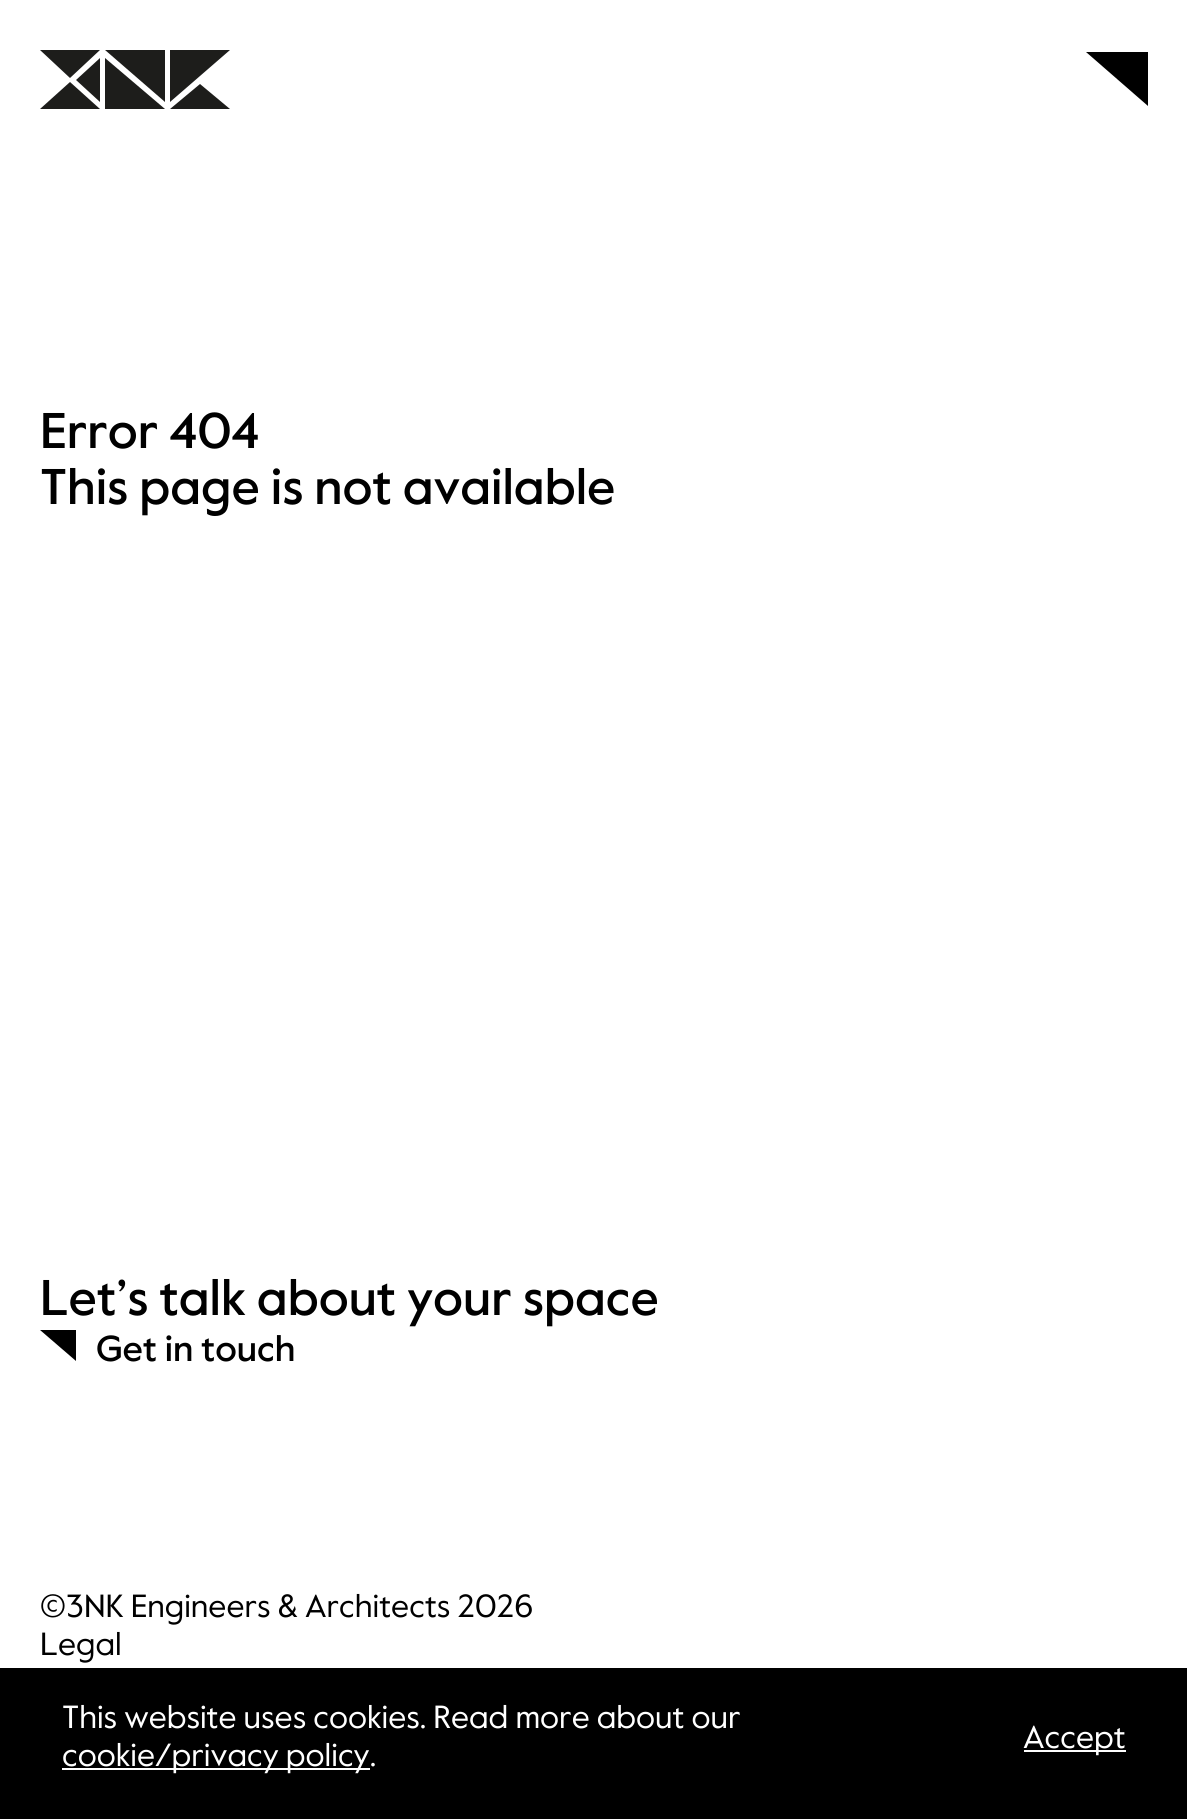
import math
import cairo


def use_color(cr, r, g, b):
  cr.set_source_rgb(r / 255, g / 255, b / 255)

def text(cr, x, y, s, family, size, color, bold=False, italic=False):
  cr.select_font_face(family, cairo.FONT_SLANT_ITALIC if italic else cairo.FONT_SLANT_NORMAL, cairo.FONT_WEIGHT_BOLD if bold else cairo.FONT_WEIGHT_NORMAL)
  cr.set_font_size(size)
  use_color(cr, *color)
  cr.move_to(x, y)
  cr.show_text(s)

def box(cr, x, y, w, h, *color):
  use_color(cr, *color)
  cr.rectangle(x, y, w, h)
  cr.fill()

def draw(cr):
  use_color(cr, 255, 255, 255)
  cr.paint()
  use_color(cr, 29, 29, 27)
  cr.new_path()
  cr.move_to(100, 102)
  cr.line_to(100, 58)
  cr.line_to(76, 80)
  cr.close_path()
  cr.fill()
  cr.new_path()
  cr.move_to(40, 109)
  cr.line_to(100, 109)
  cr.line_to(70, 82)
  cr.close_path()
  cr.move_to(40, 50)
  cr.line_to(70, 78)
  cr.line_to(100, 50)
  cr.close_path()
  cr.fill()
  cr.new_path()
  cr.move_to(170, 50)
  cr.line_to(170, 102)
  cr.line_to(230, 50)
  cr.close_path()
  cr.fill()
  cr.new_path()
  cr.move_to(170, 109)
  cr.line_to(230, 109)
  cr.line_to(200, 84)
  cr.close_path()
  cr.fill()
  cr.new_path()
  cr.move_to(105, 109)
  cr.line_to(165, 109)
  cr.line_to(105, 58)
  cr.close_path()
  cr.fill()
  cr.new_path()
  cr.move_to(105, 50)
  cr.line_to(165, 102)
  cr.line_to(165, 50)
  cr.close_path()
  cr.fill()
  use_color(cr, 0, 0, 0)
  cr.new_path()
  cr.move_to(1148, 52)
  cr.line_to(1086, 52)
  cr.line_to(1148, 106)
  cr.close_path()
  cr.fill()
  cr.new_path()
  cr.move_to(76, 1330)
  cr.line_to(40, 1330)
  cr.line_to(76, 1361)
  cr.close_path()
  cr.fill()
  box(cr, 0, 1668, 1187, 151, 0, 0, 0)
  box(cr, 62, 1768, 308, 2, 255, 255, 255)
  box(cr, 1024, 1750, 102, 2, 255, 255, 255)
  text(cr, 40, 448, "Error 404", "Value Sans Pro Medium", 50, (0, 0, 0))
  text(cr, 40, 504, "This page is not available", "Value Sans Pro Medium", 50, (0, 0, 0))
  text(cr, 40, 1315, "Let’s talk about your space", "Value Sans Pro Medium", 50, (0, 0, 0))
  text(cr, 96, 1361, "Get in touch", "Value Sans Pro Medium", 36, (0, 0, 0))
  text(cr, 40, 1617, "©3NK Engineers & Architects 2026", "Value Sans Pro", 32, (0, 0, 0))
  text(cr, 40, 1655, "Legal", "Value Sans Pro", 32, (0, 0, 0))
  text(cr, 62, 1728, "This website uses cookies. Read more about our", "Value Sans Pro", 32, (255, 255, 255))
  text(cr, 62, 1766, "cookie/privacy policy.", "Value Sans Pro", 32, (255, 255, 255))
  text(cr, 1023, 1748, "Accept", "Value Sans Pro", 32, (255, 255, 255))


surface = cairo.ImageSurface(cairo.FORMAT_RGB24, 1187, 1819)
cr = cairo.Context(surface)
options = cairo.FontOptions()
options.set_hint_metrics(cairo.HINT_METRICS_OFF)
options.set_hint_style(cairo.HINT_STYLE_NONE)
cr.set_font_options(options)
cr.set_miter_limit(4)
draw(cr)
surface.write_to_png("out.png")
